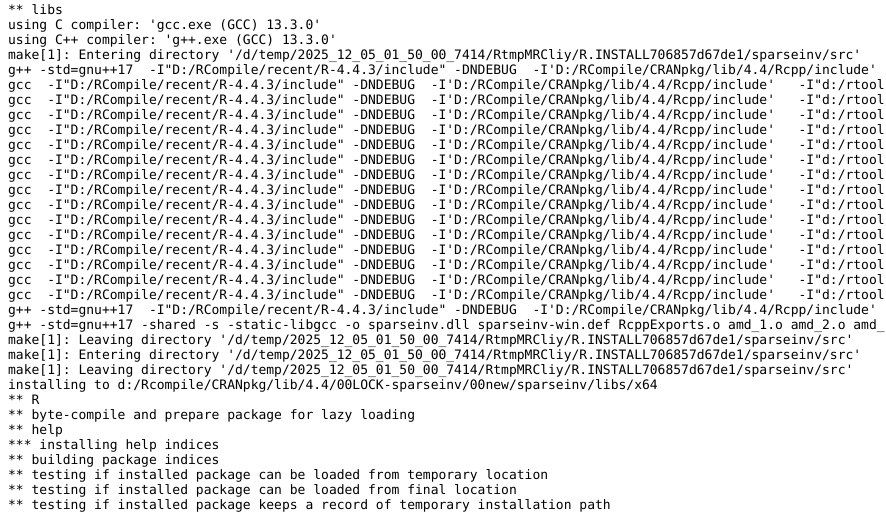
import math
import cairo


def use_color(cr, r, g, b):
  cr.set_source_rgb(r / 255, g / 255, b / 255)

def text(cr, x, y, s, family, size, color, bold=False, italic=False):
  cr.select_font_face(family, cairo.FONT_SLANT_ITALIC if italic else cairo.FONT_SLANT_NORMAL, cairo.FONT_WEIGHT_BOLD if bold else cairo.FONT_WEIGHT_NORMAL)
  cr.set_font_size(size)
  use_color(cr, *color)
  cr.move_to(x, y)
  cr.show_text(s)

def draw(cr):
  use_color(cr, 255, 255, 255)
  cr.paint()
  text(cr, 8, 14, "** libs", "DejaVu Sans Mono", 13, (0, 0, 0))
  text(cr, 8, 29, "using C compiler: 'gcc.exe (GCC) 13.3.0'", "DejaVu Sans Mono", 13, (0, 0, 0))
  text(cr, 8, 44, "using C++ compiler: 'g++.exe (GCC) 13.3.0'", "DejaVu Sans Mono", 13, (0, 0, 0))
  text(cr, 8, 59, "make[1]: Entering directory '/d/temp/2025_12_05_01_50_00_7414/RtmpMRCliy/R.INSTALL706857d67de1/sparseinv/src'", "DejaVu Sans Mono", 13, (0, 0, 0))
  text(cr, 8, 74, "g++ -std=gnu++17  -I\"D:/RCompile/recent/R-4.4.3/include\" -DNDEBUG  -I'D:/RCompile/CRANpkg/lib/4.4/Rcpp/include'", "DejaVu Sans Mono", 13, (0, 0, 0))
  text(cr, 8, 89, "gcc  -I\"D:/RCompile/recent/R-4.4.3/include\" -DNDEBUG  -I'D:/RCompile/CRANpkg/lib/4.4/Rcpp/include'   -I\"d:/rtool", "DejaVu Sans Mono", 13, (0, 0, 0))
  text(cr, 8, 104, "gcc  -I\"D:/RCompile/recent/R-4.4.3/include\" -DNDEBUG  -I'D:/RCompile/CRANpkg/lib/4.4/Rcpp/include'   -I\"d:/rtool", "DejaVu Sans Mono", 13, (0, 0, 0))
  text(cr, 8, 119, "gcc  -I\"D:/RCompile/recent/R-4.4.3/include\" -DNDEBUG  -I'D:/RCompile/CRANpkg/lib/4.4/Rcpp/include'   -I\"d:/rtool", "DejaVu Sans Mono", 13, (0, 0, 0))
  text(cr, 8, 134, "gcc  -I\"D:/RCompile/recent/R-4.4.3/include\" -DNDEBUG  -I'D:/RCompile/CRANpkg/lib/4.4/Rcpp/include'   -I\"d:/rtool", "DejaVu Sans Mono", 13, (0, 0, 0))
  text(cr, 8, 149, "gcc  -I\"D:/RCompile/recent/R-4.4.3/include\" -DNDEBUG  -I'D:/RCompile/CRANpkg/lib/4.4/Rcpp/include'   -I\"d:/rtool", "DejaVu Sans Mono", 13, (0, 0, 0))
  text(cr, 8, 164, "gcc  -I\"D:/RCompile/recent/R-4.4.3/include\" -DNDEBUG  -I'D:/RCompile/CRANpkg/lib/4.4/Rcpp/include'   -I\"d:/rtool", "DejaVu Sans Mono", 13, (0, 0, 0))
  text(cr, 8, 179, "gcc  -I\"D:/RCompile/recent/R-4.4.3/include\" -DNDEBUG  -I'D:/RCompile/CRANpkg/lib/4.4/Rcpp/include'   -I\"d:/rtool", "DejaVu Sans Mono", 13, (0, 0, 0))
  text(cr, 8, 194, "gcc  -I\"D:/RCompile/recent/R-4.4.3/include\" -DNDEBUG  -I'D:/RCompile/CRANpkg/lib/4.4/Rcpp/include'   -I\"d:/rtool", "DejaVu Sans Mono", 13, (0, 0, 0))
  text(cr, 8, 209, "gcc  -I\"D:/RCompile/recent/R-4.4.3/include\" -DNDEBUG  -I'D:/RCompile/CRANpkg/lib/4.4/Rcpp/include'   -I\"d:/rtool", "DejaVu Sans Mono", 13, (0, 0, 0))
  text(cr, 8, 224, "gcc  -I\"D:/RCompile/recent/R-4.4.3/include\" -DNDEBUG  -I'D:/RCompile/CRANpkg/lib/4.4/Rcpp/include'   -I\"d:/rtool", "DejaVu Sans Mono", 13, (0, 0, 0))
  text(cr, 8, 239, "gcc  -I\"D:/RCompile/recent/R-4.4.3/include\" -DNDEBUG  -I'D:/RCompile/CRANpkg/lib/4.4/Rcpp/include'   -I\"d:/rtool", "DejaVu Sans Mono", 13, (0, 0, 0))
  text(cr, 8, 254, "gcc  -I\"D:/RCompile/recent/R-4.4.3/include\" -DNDEBUG  -I'D:/RCompile/CRANpkg/lib/4.4/Rcpp/include'   -I\"d:/rtool", "DejaVu Sans Mono", 13, (0, 0, 0))
  text(cr, 8, 269, "gcc  -I\"D:/RCompile/recent/R-4.4.3/include\" -DNDEBUG  -I'D:/RCompile/CRANpkg/lib/4.4/Rcpp/include'   -I\"d:/rtool", "DejaVu Sans Mono", 13, (0, 0, 0))
  text(cr, 8, 284, "gcc  -I\"D:/RCompile/recent/R-4.4.3/include\" -DNDEBUG  -I'D:/RCompile/CRANpkg/lib/4.4/Rcpp/include'   -I\"d:/rtool", "DejaVu Sans Mono", 13, (0, 0, 0))
  text(cr, 8, 299, "gcc  -I\"D:/RCompile/recent/R-4.4.3/include\" -DNDEBUG  -I'D:/RCompile/CRANpkg/lib/4.4/Rcpp/include'   -I\"d:/rtool", "DejaVu Sans Mono", 13, (0, 0, 0))
  text(cr, 8, 314, "g++ -std=gnu++17  -I\"D:/RCompile/recent/R-4.4.3/include\" -DNDEBUG  -I'D:/RCompile/CRANpkg/lib/4.4/Rcpp/include'", "DejaVu Sans Mono", 13, (0, 0, 0))
  text(cr, 8, 329, "g++ -std=gnu++17 -shared -s -static-libgcc -o sparseinv.dll sparseinv-win.def RcppExports.o amd_1.o amd_2.o amd_", "DejaVu Sans Mono", 13, (0, 0, 0))
  text(cr, 8, 344, "make[1]: Leaving directory '/d/temp/2025_12_05_01_50_00_7414/RtmpMRCliy/R.INSTALL706857d67de1/sparseinv/src'", "DejaVu Sans Mono", 13, (0, 0, 0))
  text(cr, 8, 359, "make[1]: Entering directory '/d/temp/2025_12_05_01_50_00_7414/RtmpMRCliy/R.INSTALL706857d67de1/sparseinv/src'", "DejaVu Sans Mono", 13, (0, 0, 0))
  text(cr, 8, 374, "make[1]: Leaving directory '/d/temp/2025_12_05_01_50_00_7414/RtmpMRCliy/R.INSTALL706857d67de1/sparseinv/src'", "DejaVu Sans Mono", 13, (0, 0, 0))
  text(cr, 8, 389, "installing to d:/Rcompile/CRANpkg/lib/4.4/00LOCK-sparseinv/00new/sparseinv/libs/x64", "DejaVu Sans Mono", 13, (0, 0, 0))
  text(cr, 8, 404, "** R", "DejaVu Sans Mono", 13, (0, 0, 0))
  text(cr, 8, 419, "** byte-compile and prepare package for lazy loading", "DejaVu Sans Mono", 13, (0, 0, 0))
  text(cr, 8, 434, "** help", "DejaVu Sans Mono", 13, (0, 0, 0))
  text(cr, 8, 449, "*** installing help indices", "DejaVu Sans Mono", 13, (0, 0, 0))
  text(cr, 8, 464, "** building package indices", "DejaVu Sans Mono", 13, (0, 0, 0))
  text(cr, 8, 479, "** testing if installed package can be loaded from temporary location", "DejaVu Sans Mono", 13, (0, 0, 0))
  text(cr, 8, 494, "** testing if installed package can be loaded from final location", "DejaVu Sans Mono", 13, (0, 0, 0))
  text(cr, 8, 509, "** testing if installed package keeps a record of temporary installation path", "DejaVu Sans Mono", 13, (0, 0, 0))


surface = cairo.ImageSurface(cairo.FORMAT_RGB24, 886, 519)
cr = cairo.Context(surface)
options = cairo.FontOptions()
options.set_hint_metrics(cairo.HINT_METRICS_OFF)
options.set_hint_style(cairo.HINT_STYLE_NONE)
cr.set_font_options(options)
cr.set_miter_limit(4)
draw(cr)
surface.write_to_png("out.png")
